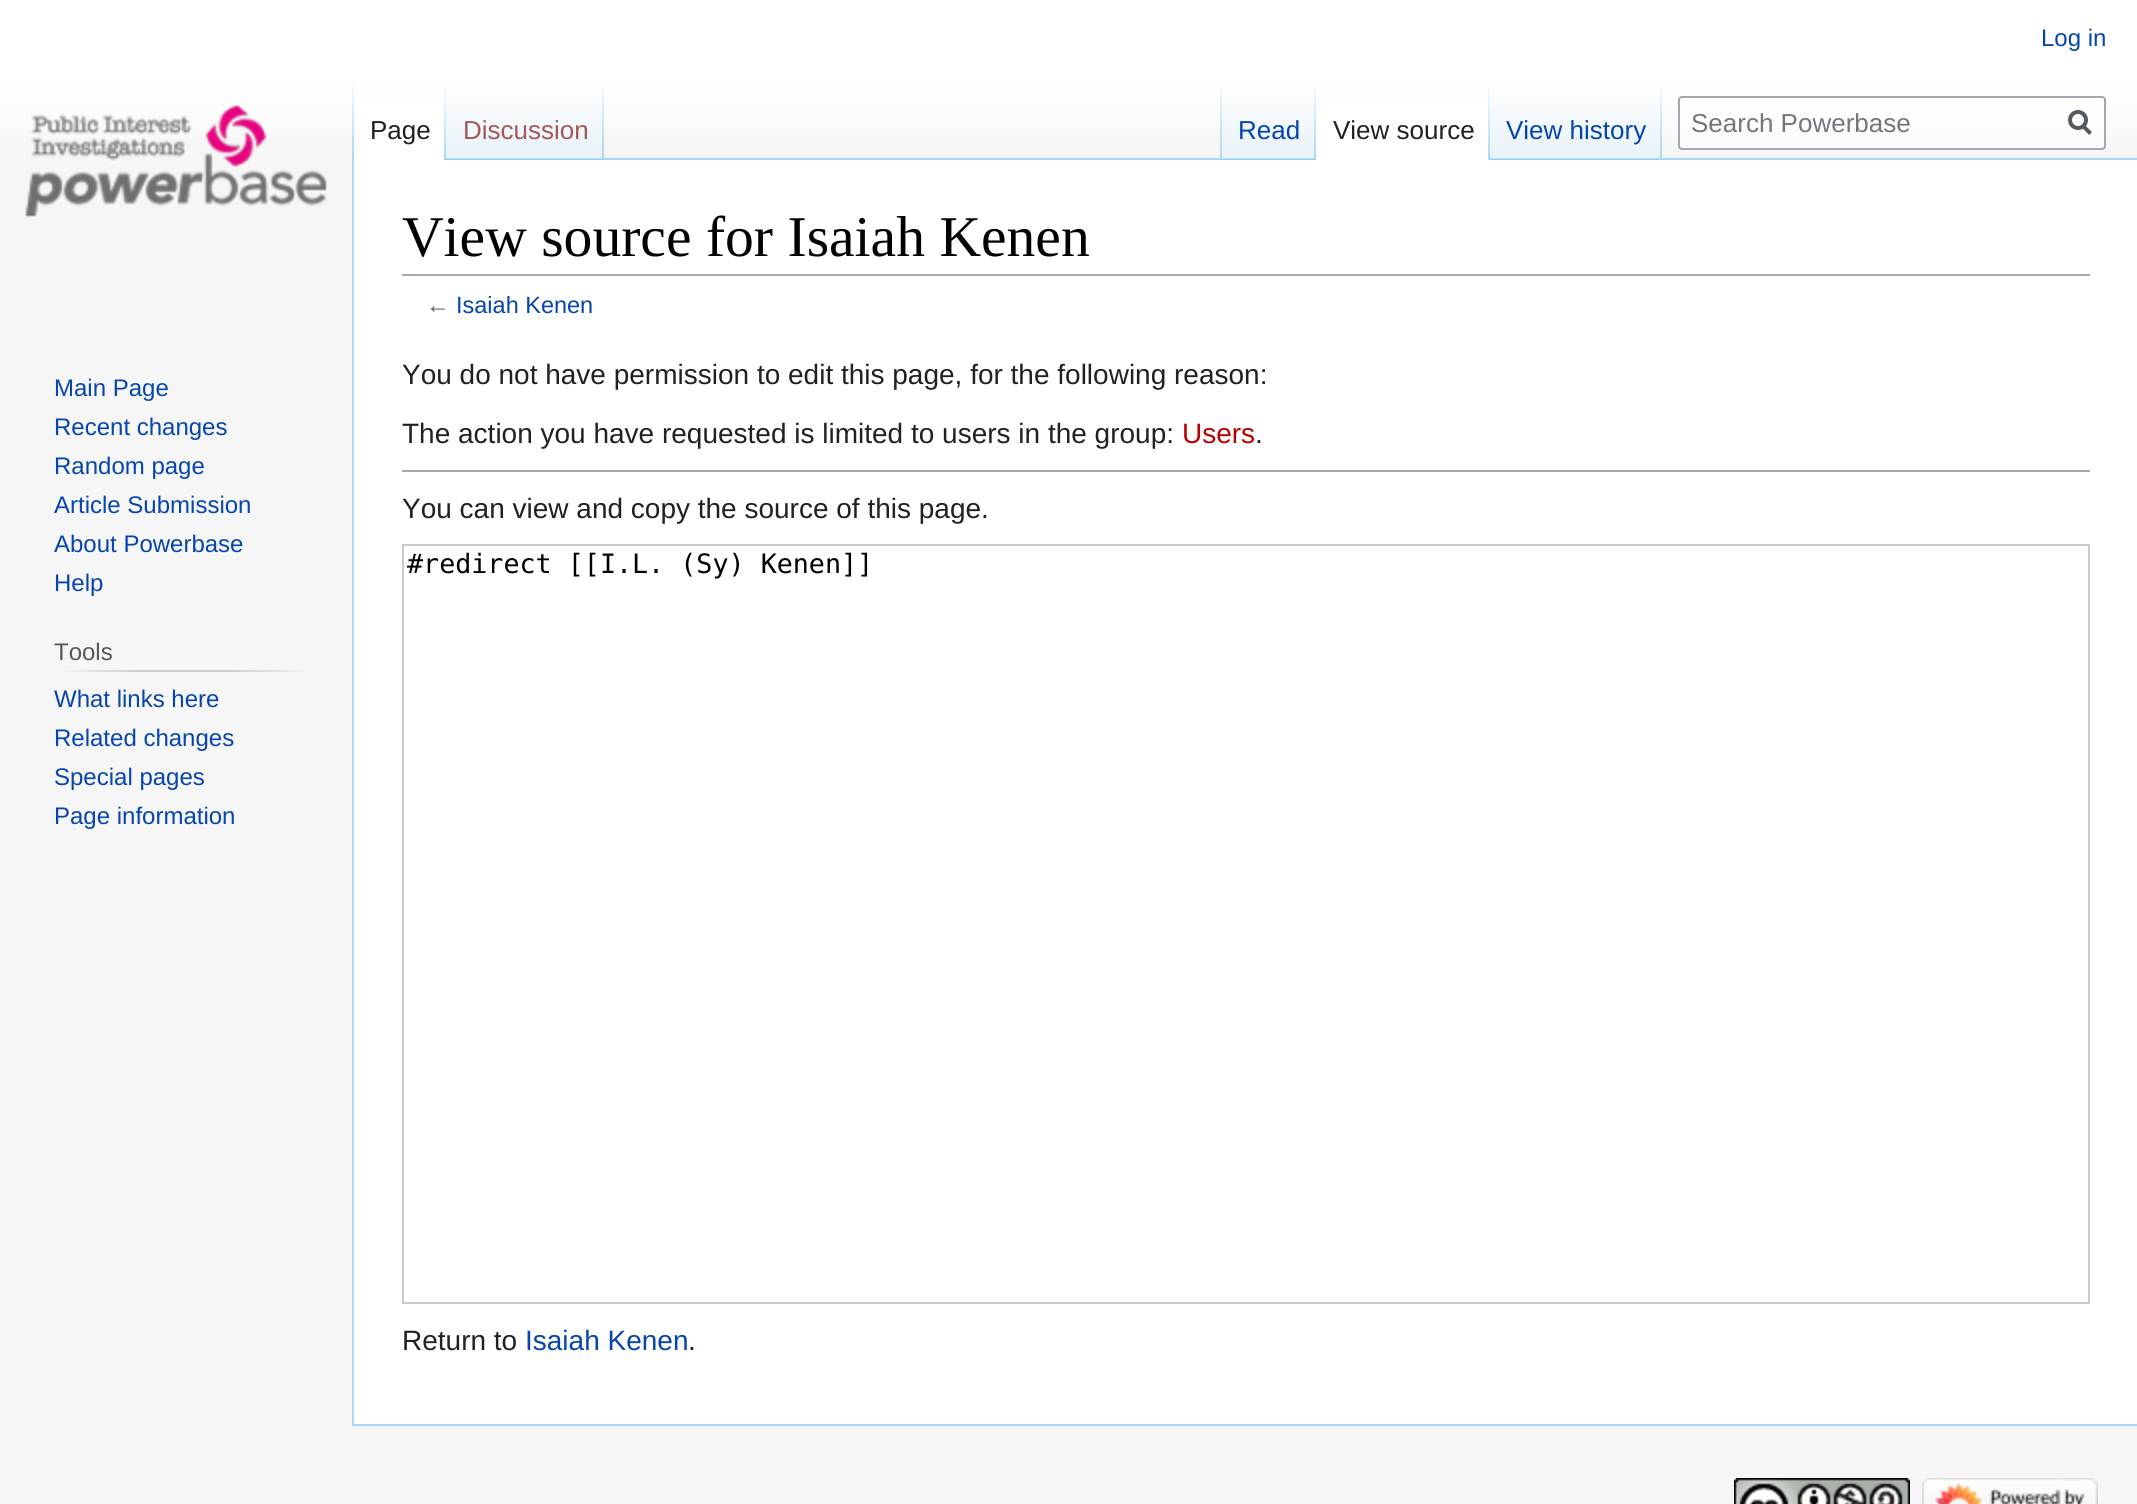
import math
import cairo


def use_color(cr, r, g, b):
  cr.set_source_rgb(r / 255, g / 255, b / 255)

def text(cr, x, y, s, family, size, color, bold=False, italic=False):
  cr.select_font_face(family, cairo.FONT_SLANT_ITALIC if italic else cairo.FONT_SLANT_NORMAL, cairo.FONT_WEIGHT_BOLD if bold else cairo.FONT_WEIGHT_NORMAL)
  cr.set_font_size(size)
  use_color(cr, *color)
  cr.move_to(x, y)
  cr.show_text(s)

def box(cr, x, y, w, h, *color):
  use_color(cr, *color)
  cr.rectangle(x, y, w, h)
  cr.fill()

def round_rect(cr, x, y, w, h, r):
  cr.new_sub_path()
  for i, (u, v) in enumerate([(x + w - r, y + h - r), (x + r, y + h - r), (x + r, y + r), (x + w - r, y + r)]):
    cr.arc(u, v, r, i * math.pi / 2, (i + 1) * math.pi / 2)
  cr.close_path()

def picture(cr, path, x, y, w, h):
  cr.save()
  cr.set_source_surface(cairo.ImageSurface.create_from_png(path), x, y)
  cr.rectangle(x, y, w, h)
  cr.fill()
  cr.restore()

def draw(cr):
  use_color(cr, 246, 246, 246)
  cr.paint()
  gradient = cairo.LinearGradient(1069, 0, 1069, 160)
  gradient.add_color_stop_rgba(0.5, 1, 1, 1, 1)
  gradient.add_color_stop_rgba(1, 0.965, 0.965, 0.965, 1)
  cr.set_source(gradient)
  cr.rectangle(0, 0, 2137, 138)
  cr.fill()
  box(cr, 352, 1424, 1785, 2, 167, 215, 249)
  box(cr, 352, 158, 2, 1268, 167, 215, 249)
  gradient = cairo.LinearGradient(353, 80, 353, 160)
  gradient.add_color_stop_rgba(0, 0.655, 0.843, 0.976, 0)
  gradient.add_color_stop_rgba(1, 0.655, 0.843, 0.976, 1)
  cr.set_source(gradient)
  cr.rectangle(352, 80, 2, 80)
  cr.fill()
  box(cr, 354, 102, 90, 58, 255, 255, 255)
  gradient = cairo.LinearGradient(445, 80, 445, 160)
  gradient.add_color_stop_rgba(0, 1, 1, 1, 1)
  gradient.add_color_stop_rgba(1, 0.655, 0.843, 0.976, 1)
  cr.set_source(gradient)
  cr.rectangle(444, 80, 2, 80)
  cr.fill()
  gradient = cairo.LinearGradient(525, 160, 525, 80)
  gradient.add_color_stop_rgba(0, 0.467, 0.757, 0.965, 1)
  gradient.add_color_stop_rgba(0.03, 0.91, 0.949, 0.973, 1)
  gradient.add_color_stop_rgba(1, 1, 1, 1, 1)
  cr.set_source(gradient)
  cr.rectangle(446, 92, 158, 68)
  cr.fill()
  gradient = cairo.LinearGradient(603, 80, 603, 160)
  gradient.add_color_stop_rgba(0, 0.655, 0.843, 0.976, 0)
  gradient.add_color_stop_rgba(1, 0.655, 0.843, 0.976, 1)
  cr.set_source(gradient)
  cr.rectangle(602, 80, 2, 80)
  cr.fill()
  box(cr, 604, 158, 1533, 2, 167, 215, 249)
  gradient = cairo.LinearGradient(1221, 80, 1221, 160)
  gradient.add_color_stop_rgba(0, 0.655, 0.843, 0.976, 0)
  gradient.add_color_stop_rgba(1, 0.655, 0.843, 0.976, 1)
  cr.set_source(gradient)
  cr.rectangle(1220, 80, 2, 80)
  cr.fill()
  gradient = cairo.LinearGradient(1269, 160, 1269, 80)
  gradient.add_color_stop_rgba(0, 0.467, 0.757, 0.965, 1)
  gradient.add_color_stop_rgba(0.03, 0.91, 0.949, 0.973, 1)
  gradient.add_color_stop_rgba(1, 1, 1, 1, 1)
  cr.set_source(gradient)
  cr.rectangle(1222, 92, 94, 68)
  cr.fill()
  gradient = cairo.LinearGradient(1315, 80, 1315, 160)
  gradient.add_color_stop_rgba(0, 0.655, 0.843, 0.976, 0)
  gradient.add_color_stop_rgba(1, 0.655, 0.843, 0.976, 1)
  cr.set_source(gradient)
  cr.rectangle(1314, 80, 2, 80)
  cr.fill()
  box(cr, 1316, 102, 172, 58, 255, 255, 255)
  gradient = cairo.LinearGradient(1489, 80, 1489, 160)
  gradient.add_color_stop_rgba(0, 1, 1, 1, 1)
  gradient.add_color_stop_rgba(1, 0.655, 0.843, 0.976, 1)
  cr.set_source(gradient)
  cr.rectangle(1488, 80, 2, 80)
  cr.fill()
  gradient = cairo.LinearGradient(1576, 160, 1576, 80)
  gradient.add_color_stop_rgba(0, 0.467, 0.757, 0.965, 1)
  gradient.add_color_stop_rgba(0.03, 0.91, 0.949, 0.973, 1)
  gradient.add_color_stop_rgba(1, 1, 1, 1, 1)
  cr.set_source(gradient)
  cr.rectangle(1490, 92, 172, 68)
  cr.fill()
  gradient = cairo.LinearGradient(1661, 80, 1661, 160)
  gradient.add_color_stop_rgba(0, 0.655, 0.843, 0.976, 0)
  gradient.add_color_stop_rgba(1, 0.655, 0.843, 0.976, 1)
  cr.set_source(gradient)
  cr.rectangle(1660, 80, 2, 80)
  cr.fill()
  cr.set_source_rgba(1, 1, 1, 0.5)
  round_rect(cr, 1679, 97, 426, 52, 3)
  cr.fill_preserve()
  use_color(cr, 162, 169, 177)
  cr.stroke()
  cr.new_path()
  cr.move_to(2090.5, 133.5)
  cr.line_to(2082.5, 125.5)
  use_color(cr, 84, 89, 93)
  cr.set_line_width(4)
  cr.stroke()
  cr.arc(2078, 120, 8, 0, 2 * math.pi)
  cr.stroke()
  picture(cr, "img_01.png", 25, 105, 302, 112)
  gradient = cairo.LinearGradient(54, 671, 316, 671)
  gradient.add_color_stop_rgba(0, 0.965, 0.965, 0.965, 1)
  gradient.add_color_stop_rgba(0.33, 0.784, 0.8, 0.82, 1)
  gradient.add_color_stop_rgba(0.66, 0.784, 0.8, 0.82, 1)
  gradient.add_color_stop_rgba(1, 0.965, 0.965, 0.965, 1)
  cr.set_source(gradient)
  cr.rectangle(54, 670, 262, 2)
  cr.fill()
  box(cr, 354, 160, 1783, 1264, 255, 255, 255)
  box(cr, 402, 274, 1688, 2, 162, 169, 177)
  box(cr, 402, 470, 1688, 2, 162, 169, 177)
  cr.rectangle(403, 545, 1686, 758)
  use_color(cr, 200, 204, 209)
  cr.set_line_width(2)
  cr.stroke()
  picture(cr, "img_02.png", 1734, 1478, 176, 26)
  picture(cr, "img_03.png", 1922, 1478, 176, 26)
  text(cr, 2041, 46, "Log in", "Liberation Sans", 24, (6, 69, 173))
  text(cr, 370, 139, "Page", "Liberation Sans", 26, (32, 33, 34))
  text(cr, 463, 139, "Discussion", "Liberation Sans", 26, (165, 88, 88))
  text(cr, 1238, 139, "Read", "Liberation Sans", 26, (6, 69, 173))
  text(cr, 1333, 139, "View source", "Liberation Sans", 26, (32, 33, 34))
  text(cr, 1506, 139, "View history", "Liberation Sans", 26, (6, 69, 173))
  text(cr, 1691, 132, "Search Powerbase", "Liberation Sans", 26, (114, 119, 125))
  text(cr, 54, 396, "Main Page", "Liberation Sans", 24, (6, 69, 173))
  text(cr, 54, 435, "Recent changes", "Liberation Sans", 24, (6, 69, 173))
  text(cr, 54, 474, "Random page", "Liberation Sans", 24, (6, 69, 173))
  text(cr, 54, 513, "Article Submission", "Liberation Sans", 24, (6, 69, 173))
  text(cr, 54, 552, "About Powerbase", "Liberation Sans", 24, (6, 69, 173))
  text(cr, 54, 591, "Help", "Liberation Sans", 24, (6, 69, 173))
  text(cr, 54, 660, "Tools", "Liberation Sans", 24, (84, 89, 93))
  text(cr, 54, 707, "What links here", "Liberation Sans", 24, (6, 69, 173))
  text(cr, 54, 746, "Related changes", "Liberation Sans", 24, (6, 69, 173))
  text(cr, 54, 785, "Special pages", "Liberation Sans", 24, (6, 69, 173))
  text(cr, 54, 824, "Page information", "Liberation Sans", 24, (6, 69, 173))
  text(cr, 402, 256, "View source for Isaiah Kenen", "Liberation Serif", 57.6, (0, 0, 0))
  text(cr, 426, 313, "←", "Liberation Sans", 23.5, (84, 89, 93))
  text(cr, 456, 313, "Isaiah Kenen", "Liberation Sans", 23.5, (6, 69, 173))
  text(cr, 402, 384, "You do not have permission to edit this page, for the following reason:", "Liberation Sans", 28, (32, 33, 34))
  text(cr, 402, 443, "The action you have requested is limited to users in the group:", "Liberation Sans", 28, (32, 33, 34))
  text(cr, 1182, 443, "Users", "Liberation Sans", 28, (186, 0, 0))
  text(cr, 1255, 443, ".", "Liberation Sans", 28, (32, 33, 34))
  text(cr, 402, 518, "You can view and copy the source of this page.", "Liberation Sans", 28, (32, 33, 34))
  text(cr, 407, 573, "#redirect [[I.L. (Sy) Kenen]]", "DejaVu Sans Mono", 26.7, (0, 0, 0))
  text(cr, 402, 1350, "Return to", "Liberation Sans", 28, (32, 33, 34))
  text(cr, 525, 1350, "Isaiah Kenen", "Liberation Sans", 28, (6, 69, 173))
  text(cr, 688, 1350, ".", "Liberation Sans", 28, (32, 33, 34))


surface = cairo.ImageSurface(cairo.FORMAT_RGB24, 2137, 1504)
cr = cairo.Context(surface)
options = cairo.FontOptions()
options.set_hint_metrics(cairo.HINT_METRICS_OFF)
options.set_hint_style(cairo.HINT_STYLE_NONE)
cr.set_font_options(options)
cr.set_miter_limit(4)
draw(cr)
surface.write_to_png("out.png")
